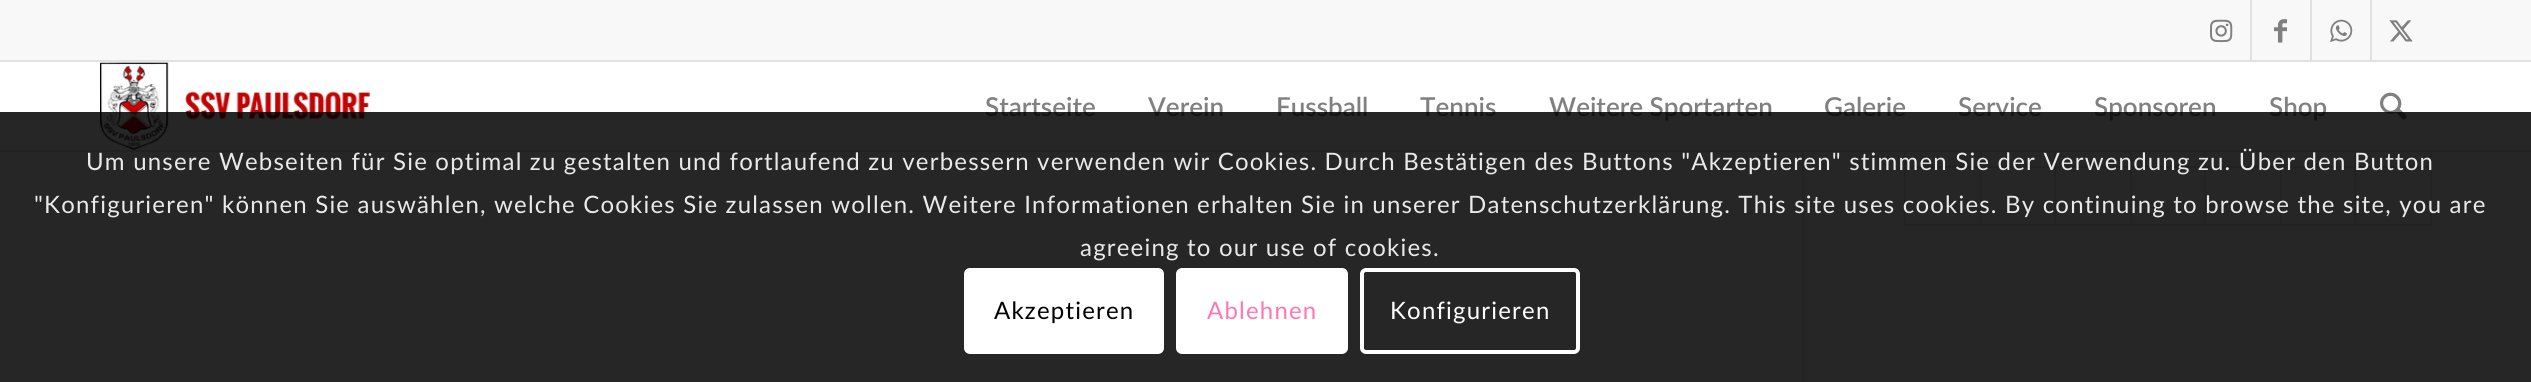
import math
import cairo


def use_color(cr, r, g, b):
  cr.set_source_rgb(r / 255, g / 255, b / 255)

def text(cr, x, y, s, family, size, color, bold=False, italic=False):
  cr.select_font_face(family, cairo.FONT_SLANT_ITALIC if italic else cairo.FONT_SLANT_NORMAL, cairo.FONT_WEIGHT_BOLD if bold else cairo.FONT_WEIGHT_NORMAL)
  cr.set_font_size(size)
  use_color(cr, *color)
  cr.move_to(x, y)
  cr.show_text(s)

def spaced_text(cr, x, y, s, letter, word):
  cr.move_to(x, y)
  for ch in s:
    cr.show_text(ch)
    cr.rel_move_to(letter + word * (ch == ' '), 0)

def box(cr, x, y, w, h, *color):
  use_color(cr, *color)
  cr.rectangle(x, y, w, h)
  cr.fill()

def round_rect(cr, x, y, w, h, r):
  cr.new_sub_path()
  for i, (u, v) in enumerate([(x + w - r, y + h - r), (x + r, y + h - r), (x + r, y + r), (x + w - r, y + r)]):
    cr.arc(u, v, r, i * math.pi / 2, (i + 1) * math.pi / 2)
  cr.close_path()

def picture(cr, path, x, y, w, h):
  cr.save()
  cr.set_source_surface(cairo.ImageSurface.create_from_png(path), x, y)
  cr.rectangle(x, y, w, h)
  cr.fill()
  cr.restore()

def draw(cr):
  use_color(cr, 255, 255, 255)
  cr.paint()
  box(cr, 0, 0, 2531, 60, 248, 248, 248)
  box(cr, 0, 60, 2531, 2, 225, 225, 225)
  box(cr, 2250, 0, 2, 60, 225, 225, 225)
  picture(cr, "img_01.png", 2210, 19, 23, 24)
  box(cr, 2310, 0, 2, 60, 225, 225, 225)
  picture(cr, "img_02.png", 2274, 19, 13, 24)
  box(cr, 2370, 0, 2, 60, 225, 225, 225)
  picture(cr, "img_03.png", 2330, 19, 23, 23)
  picture(cr, "img_04.png", 2389, 20, 24, 22)
  box(cr, 0, 150, 2531, 2, 225, 225, 225)
  picture(cr, "img_05.png", 100, 62, 270, 88)
  picture(cr, "img_06.png", 2380, 92, 27, 28)
  box(cr, 1802, 152, 2, 230, 225, 225, 225)
  box(cr, 1906, 168, 524, 56, 252, 252, 252)
  box(cr, 2430, 152, 2, 74, 225, 225, 225)
  box(cr, 2354, 224, 78, 2, 225, 225, 225)
  box(cr, 2354, 166, 2, 60, 225, 225, 225)
  box(cr, 2280, 224, 76, 2, 225, 225, 225)
  box(cr, 2280, 166, 2, 60, 225, 225, 225)
  box(cr, 2204, 224, 78, 2, 225, 225, 225)
  box(cr, 2204, 166, 2, 60, 225, 225, 225)
  box(cr, 2130, 224, 76, 2, 225, 225, 225)
  box(cr, 2130, 166, 2, 60, 225, 225, 225)
  box(cr, 2054, 224, 78, 2, 225, 225, 225)
  box(cr, 2054, 166, 2, 60, 225, 225, 225)
  box(cr, 1980, 224, 76, 2, 225, 225, 225)
  box(cr, 1980, 166, 2, 60, 225, 225, 225)
  box(cr, 1904, 224, 78, 2, 225, 225, 225)
  box(cr, 1904, 166, 2, 60, 225, 225, 225)
  box(cr, 2354, 166, 78, 2, 225, 225, 225)
  box(cr, 2354, 152, 2, 16, 225, 225, 225)
  box(cr, 2280, 166, 76, 2, 225, 225, 225)
  box(cr, 2280, 152, 2, 16, 225, 225, 225)
  box(cr, 2204, 166, 78, 2, 225, 225, 225)
  box(cr, 2204, 152, 2, 16, 225, 225, 225)
  box(cr, 2130, 166, 76, 2, 225, 225, 225)
  box(cr, 2130, 152, 2, 16, 225, 225, 225)
  box(cr, 2054, 166, 78, 2, 225, 225, 225)
  box(cr, 2054, 152, 2, 16, 225, 225, 225)
  box(cr, 1980, 166, 76, 2, 225, 225, 225)
  box(cr, 1980, 152, 2, 16, 225, 225, 225)
  box(cr, 1904, 166, 78, 2, 225, 225, 225)
  box(cr, 1904, 152, 2, 16, 225, 225, 225)
  text(cr, 985, 116, "Startseite", "Lato SemiBold", 26, (128, 128, 128))
  text(cr, 1148, 116, "Verein", "Lato SemiBold", 26, (128, 128, 128))
  text(cr, 1276, 116, "Fussball", "Lato SemiBold", 26, (128, 128, 128))
  text(cr, 1420, 116, "Tennis", "Lato SemiBold", 26, (128, 128, 128))
  text(cr, 1549, 116, "Weitere Sportarten", "Lato SemiBold", 26, (128, 128, 128))
  text(cr, 1824, 116, "Galerie", "Lato SemiBold", 26, (128, 128, 128))
  text(cr, 1958, 116, "Service", "Lato SemiBold", 26, (128, 128, 128))
  text(cr, 2094, 116, "Sponsoren", "Lato SemiBold", 26, (128, 128, 128))
  text(cr, 2269, 116, "Shop", "Lato SemiBold", 26, (128, 128, 128))
  cr.set_source_rgba(0, 0, 0, 0.85)
  cr.rectangle(0, 112, 2531, 270)
  cr.fill()
  cr.select_font_face("Lato")
  cr.set_font_size(24)
  use_color(cr, 233, 233, 233)
  spaced_text(cr, 86, 170, "Um unsere Webseiten für Sie optimal zu gestalten und fortlaufend zu verbessern verwenden wir Cookies. Durch Bestätigen des Buttons \"Akzeptieren\" stimmen Sie der Verwendung zu. Über den Button", 1.2, 0)
  spaced_text(cr, 34, 213, "\"Konfigurieren\" können Sie auswählen, welche Cookies Sie zulassen wollen. Weitere Informationen erhalten Sie in unserer Datenschutzerklärung. This site uses cookies. By continuing to browse the site, you are", 1.2, 0)
  spaced_text(cr, 1080, 256, "agreeing to our use of cookies.", 1.2, 0)
  use_color(cr, 255, 255, 255)
  round_rect(cr, 964, 268, 200, 86, 6)
  cr.fill()
  use_color(cr, 0, 0, 0)
  spaced_text(cr, 994, 319, "Akzeptieren", 1.2, 0)
  use_color(cr, 255, 255, 255)
  round_rect(cr, 1178, 270, 168, 82, 4)
  cr.fill_preserve()
  cr.set_line_width(4)
  cr.stroke()
  use_color(cr, 255, 117, 181)
  spaced_text(cr, 1207, 319, "Ablehnen", 1.2, 0)
  round_rect(cr, 1362, 270, 216, 82, 4)
  use_color(cr, 255, 255, 255)
  cr.stroke()
  spaced_text(cr, 1390, 319, "Konfigurieren", 1.2, 0)


surface = cairo.ImageSurface(cairo.FORMAT_RGB24, 2531, 382)
cr = cairo.Context(surface)
options = cairo.FontOptions()
options.set_hint_metrics(cairo.HINT_METRICS_OFF)
options.set_hint_style(cairo.HINT_STYLE_NONE)
cr.set_font_options(options)
cr.set_miter_limit(4)
draw(cr)
surface.write_to_png("out.png")
